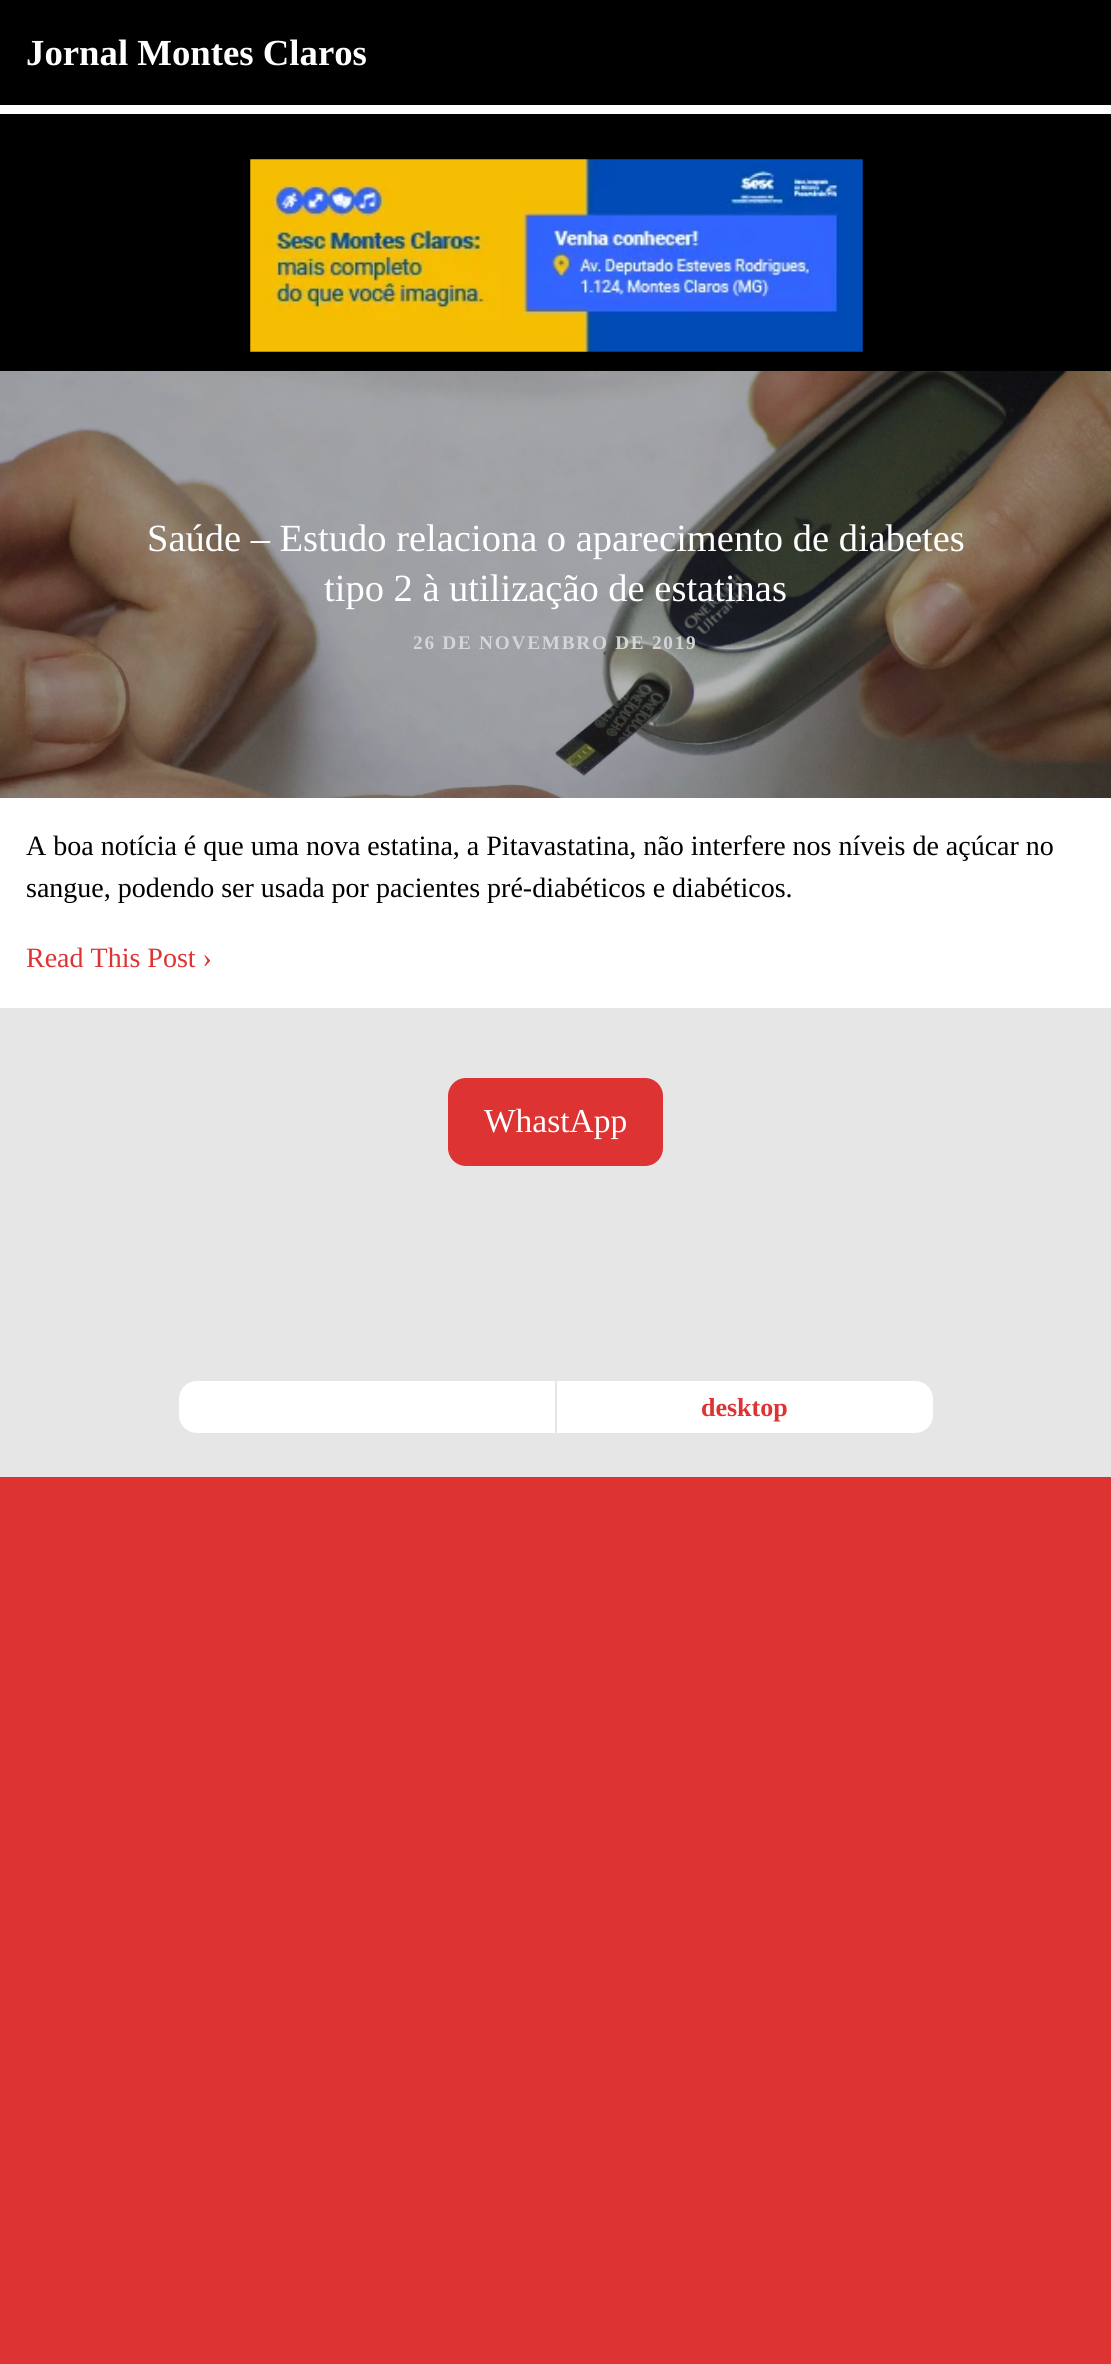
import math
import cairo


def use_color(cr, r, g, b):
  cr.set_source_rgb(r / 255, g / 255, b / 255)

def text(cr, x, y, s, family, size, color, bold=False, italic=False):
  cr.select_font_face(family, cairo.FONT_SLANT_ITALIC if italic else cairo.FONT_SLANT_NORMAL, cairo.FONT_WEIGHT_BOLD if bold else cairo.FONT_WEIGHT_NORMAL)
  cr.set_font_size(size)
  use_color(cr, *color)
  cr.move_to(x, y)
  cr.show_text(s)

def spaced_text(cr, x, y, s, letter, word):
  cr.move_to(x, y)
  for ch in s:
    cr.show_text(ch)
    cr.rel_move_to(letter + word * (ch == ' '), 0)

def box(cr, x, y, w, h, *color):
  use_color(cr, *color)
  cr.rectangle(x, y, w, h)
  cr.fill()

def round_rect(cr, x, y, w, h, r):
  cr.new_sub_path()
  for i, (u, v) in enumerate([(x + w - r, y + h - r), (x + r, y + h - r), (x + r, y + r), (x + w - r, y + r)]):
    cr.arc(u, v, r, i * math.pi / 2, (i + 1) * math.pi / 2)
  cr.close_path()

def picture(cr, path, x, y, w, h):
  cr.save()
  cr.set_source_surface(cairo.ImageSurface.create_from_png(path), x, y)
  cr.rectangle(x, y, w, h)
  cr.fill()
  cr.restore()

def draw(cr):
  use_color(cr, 221, 51, 51)
  cr.paint()
  box(cr, 0, 105, 1111, 903, 255, 255, 255)
  box(cr, 0, 0, 1111, 105, 0, 0, 0)
  box(cr, 0, 114, 1111, 257, 0, 0, 0)
  picture(cr, "img_01.png", 250, 159, 613, 193)
  picture(cr, "img_02.png", 0, 371, 1111, 427)
  box(cr, 0, 1008, 1111, 469, 230, 230, 230)
  use_color(cr, 221, 51, 51)
  round_rect(cr, 448, 1078, 215, 88, 18)
  cr.fill()
  use_color(cr, 255, 255, 255)
  cr.new_path()
  cr.move_to(197, 1381)
  cr.line_to(557, 1381)
  cr.line_to(557, 1433)
  cr.line_to(197, 1433)
  cr.curve_to(187, 1433, 179, 1425, 179, 1415)
  cr.line_to(179, 1399)
  cr.curve_to(179, 1389, 187, 1381, 197, 1381)
  cr.close_path()
  cr.fill()
  cr.new_path()
  cr.move_to(555, 1381)
  cr.line_to(915, 1381)
  cr.curve_to(925, 1381, 933, 1389, 933, 1399)
  cr.line_to(933, 1415)
  cr.curve_to(933, 1425, 925, 1433, 915, 1433)
  cr.line_to(555, 1433)
  cr.close_path()
  cr.fill()
  box(cr, 555, 1381, 2, 52, 230, 230, 230)
  text(cr, 26, 65, "Jornal Montes Claros", "Liberation Serif", 36.75, (255, 255, 255), bold=True)
  text(cr, 147, 551, "Saúde – Estudo relaciona o aparecimento de diabetes", "Liberation Serif", 38.5, (255, 255, 255))
  text(cr, 324, 601, "tipo 2 à utilização de estatinas", "Liberation Serif", 38.5, (255, 255, 255))
  cr.select_font_face("Liberation Serif", cairo.FONT_SLANT_NORMAL, cairo.FONT_WEIGHT_BOLD)
  cr.set_font_size(19.25)
  use_color(cr, 212, 213, 214)
  spaced_text(cr, 413, 649, "26 DE NOVEMBRO DE 2019", 1.75, 0)
  text(cr, 26, 855, "A boa notícia é que uma nova estatina, a Pitavastatina, não interfere nos níveis de açúcar no", "Liberation Serif", 28, (0, 0, 0))
  text(cr, 26, 897, "sangue, podendo ser usada por pacientes pré-diabéticos e diabéticos.", "Liberation Serif", 28, (0, 0, 0))
  text(cr, 26, 967, "Read This Post ›", "Liberation Serif", 28, (221, 51, 51))
  text(cr, 484, 1132, "WhastApp", "Liberation Serif", 33.5, (255, 255, 255))
  text(cr, 701, 1416, "desktop", "Liberation Serif", 26, (221, 51, 51), bold=True)


surface = cairo.ImageSurface(cairo.FORMAT_RGB24, 1111, 2364)
cr = cairo.Context(surface)
options = cairo.FontOptions()
options.set_hint_metrics(cairo.HINT_METRICS_OFF)
options.set_hint_style(cairo.HINT_STYLE_NONE)
cr.set_font_options(options)
cr.set_miter_limit(4)
draw(cr)
surface.write_to_png("out.png")
